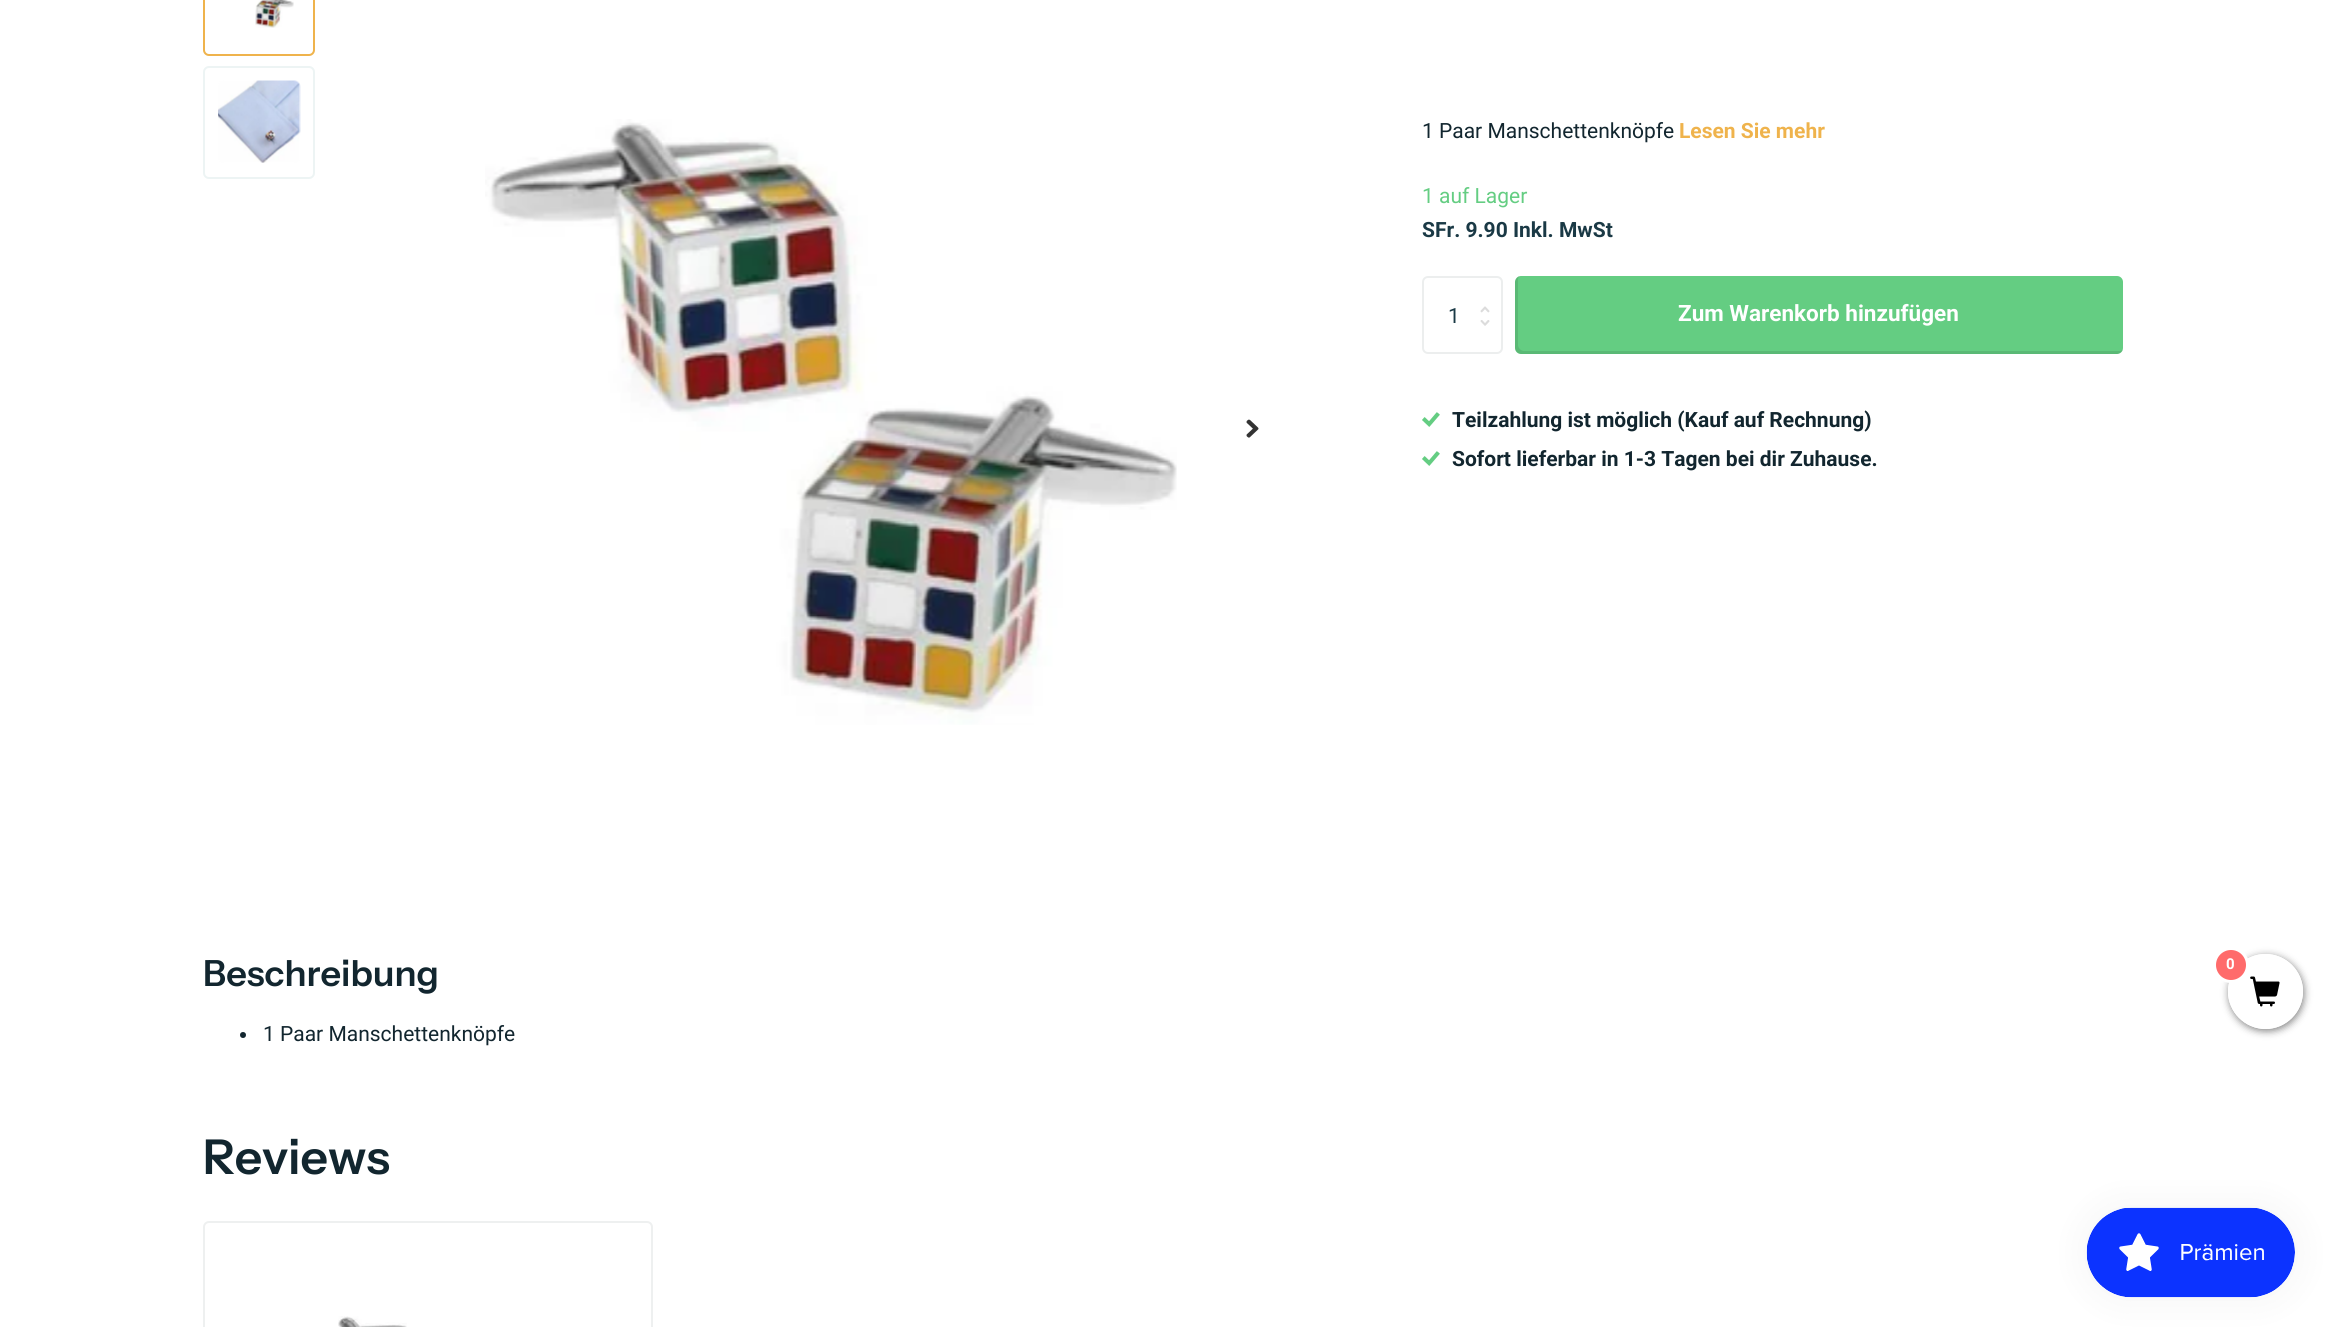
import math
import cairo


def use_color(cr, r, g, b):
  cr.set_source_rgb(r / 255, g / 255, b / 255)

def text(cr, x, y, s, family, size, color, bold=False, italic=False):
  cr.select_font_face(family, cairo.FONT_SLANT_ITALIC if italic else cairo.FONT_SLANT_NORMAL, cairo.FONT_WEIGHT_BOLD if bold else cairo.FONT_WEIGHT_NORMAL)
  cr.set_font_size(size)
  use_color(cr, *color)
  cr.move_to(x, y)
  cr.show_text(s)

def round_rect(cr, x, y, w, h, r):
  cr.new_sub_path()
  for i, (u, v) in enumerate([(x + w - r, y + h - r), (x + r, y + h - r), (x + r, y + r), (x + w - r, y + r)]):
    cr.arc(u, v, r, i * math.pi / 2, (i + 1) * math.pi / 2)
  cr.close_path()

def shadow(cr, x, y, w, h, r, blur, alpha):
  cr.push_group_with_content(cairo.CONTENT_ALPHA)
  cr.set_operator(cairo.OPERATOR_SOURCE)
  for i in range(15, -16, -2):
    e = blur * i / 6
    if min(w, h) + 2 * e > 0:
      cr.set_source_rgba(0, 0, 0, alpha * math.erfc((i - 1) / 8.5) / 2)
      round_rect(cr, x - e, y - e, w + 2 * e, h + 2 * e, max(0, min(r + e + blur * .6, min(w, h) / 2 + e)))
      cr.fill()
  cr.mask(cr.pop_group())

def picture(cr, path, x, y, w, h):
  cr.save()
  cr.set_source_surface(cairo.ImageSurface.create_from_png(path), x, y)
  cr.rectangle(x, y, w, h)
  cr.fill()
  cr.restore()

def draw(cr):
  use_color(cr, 255, 255, 255)
  cr.paint()
  round_rect(cr, 1423, 277, 79, 76, 5)
  use_color(cr, 236, 238, 238)
  cr.stroke()
  picture(cr, "img_01.png", 1480, 306, 10, 7)
  picture(cr, "img_02.png", 1480, 320, 10, 6)
  use_color(cr, 100, 205, 130)
  round_rect(cr, 1515, 276, 608, 78, 6)
  cr.fill()
  cr.set_source_rgba(0, 0, 0, 0.1)
  cr.new_path()
  cr.move_to(1519, 276)
  cr.curve_to(1517, 277, 1515, 280, 1515, 282)
  cr.line_to(1515, 348)
  cr.curve_to(1515, 351, 1518, 354, 1521, 354)
  cr.line_to(2117, 354)
  cr.curve_to(2119, 354, 2122, 352, 2123, 350)
  cr.line_to(2120, 351)
  cr.line_to(1524, 351)
  cr.curve_to(1521, 351, 1518, 348, 1518, 345)
  cr.line_to(1518, 279)
  cr.close_path()
  cr.fill()
  picture(cr, "img_03.png", 1422, 412, 18, 15)
  picture(cr, "img_03.png", 1422, 451, 18, 15)
  round_rect(cr, 204, -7, 110, 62, 5)
  use_color(cr, 239, 179, 76)
  cr.stroke()
  picture(cr, "img_04.png", 255, 0, 39, 28)
  round_rect(cr, 204, 67, 110, 111, 5)
  use_color(cr, 237, 244, 244)
  cr.stroke()
  picture(cr, "img_05.png", 218, 80, 83, 83)
  picture(cr, "img_06.png", 1246, 419, 13, 19)
  picture(cr, "img_07.png", 485, 119, 692, 606)
  use_color(cr, 18, 38, 47)
  cr.arc(243, 1035, 3, 0, 2 * math.pi)
  cr.fill()
  round_rect(cr, 204, 1222, 448, 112, 5)
  use_color(cr, 238, 240, 240)
  cr.stroke()
  picture(cr, "img_08.png", 338, 1316, 69, 11)
  cr.save()
  cr.set_fill_rule(cairo.FILL_RULE_EVEN_ODD)
  cr.new_path()
  cr.move_to(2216, 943)
  cr.line_to(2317, 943)
  cr.line_to(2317, 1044)
  cr.line_to(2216, 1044)
  cr.close_path()
  cr.move_to(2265.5, 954)
  cr.curve_to(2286, 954, 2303, 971, 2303, 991.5)
  cr.curve_to(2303, 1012, 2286, 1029, 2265.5, 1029)
  cr.curve_to(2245, 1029, 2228, 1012, 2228, 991.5)
  cr.curve_to(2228, 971, 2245, 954, 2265.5, 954)
  cr.close_path()
  cr.clip()
  use_color(cr, 128, 128, 128)
  shadow(cr, 2229, 956, 75, 75, 37.5, 4, 1)
  cr.restore()
  cr.set_source_rgba(1, 1, 1, 0.9)
  cr.arc(2265.5, 991.5, 37.5, 0, 2 * math.pi)
  cr.fill()
  use_color(cr, 255, 107, 107)
  cr.arc(2231, 965, 16.5, 0, 2 * math.pi)
  cr.fill_preserve()
  use_color(cr, 255, 255, 255)
  cr.set_line_width(3)
  cr.stroke()
  picture(cr, "img_09.png", 2250, 976, 30, 31)
  use_color(cr, 0, 0, 0)
  shadow(cr, 2087, 1208, 208, 90, 45, 19, 0.05)
  picture(cr, "img_10.png", 2086, 1207, 209, 91)
  text(cr, 1422, 138, "1 Paar Manschettenknöpfe", "Roboto", 21, (18, 38, 47))
  text(cr, 1679, 138, "Lesen Sie mehr", "Roboto", 21, (239, 179, 76), bold=True)
  text(cr, 1422, 203, "1 auf Lager", "Roboto", 21, (100, 205, 130))
  text(cr, 1422, 237, "SFr. 9.90 Inkl. MwSt", "Roboto", 21, (26, 57, 69), bold=True)
  text(cr, 1448, 323, "1", "Roboto", 21, (26, 57, 69))
  text(cr, 1678, 321, "Zum Warenkorb hinzufügen", "Roboto", 22.5, (255, 255, 255), bold=True)
  text(cr, 1452, 427, "Teilzahlung ist möglich (Kauf auf Rechnung)", "Roboto", 21, (18, 38, 47), bold=True)
  text(cr, 1452, 466, "Sofort lieferbar in 1-3 Tagen bei dir Zuhause.", "Roboto", 21, (18, 38, 47), bold=True)
  text(cr, 203, 986, "Beschreibung", "Instrument Sans SemiBold", 36, (18, 38, 47))
  text(cr, 263, 1041, "1 Paar Manschettenknöpfe", "Roboto", 21, (18, 38, 47))
  text(cr, 203, 1174, "Reviews", "Instrument Sans SemiBold", 48, (18, 38, 47))
  text(cr, 2226, 969, "0", "Roboto", 15, (255, 255, 255), bold=True)


surface = cairo.ImageSurface(cairo.FORMAT_RGB24, 2325, 1327)
cr = cairo.Context(surface)
options = cairo.FontOptions()
options.set_hint_metrics(cairo.HINT_METRICS_OFF)
options.set_hint_style(cairo.HINT_STYLE_NONE)
cr.set_font_options(options)
cr.set_miter_limit(4)
draw(cr)
surface.write_to_png("out.png")
